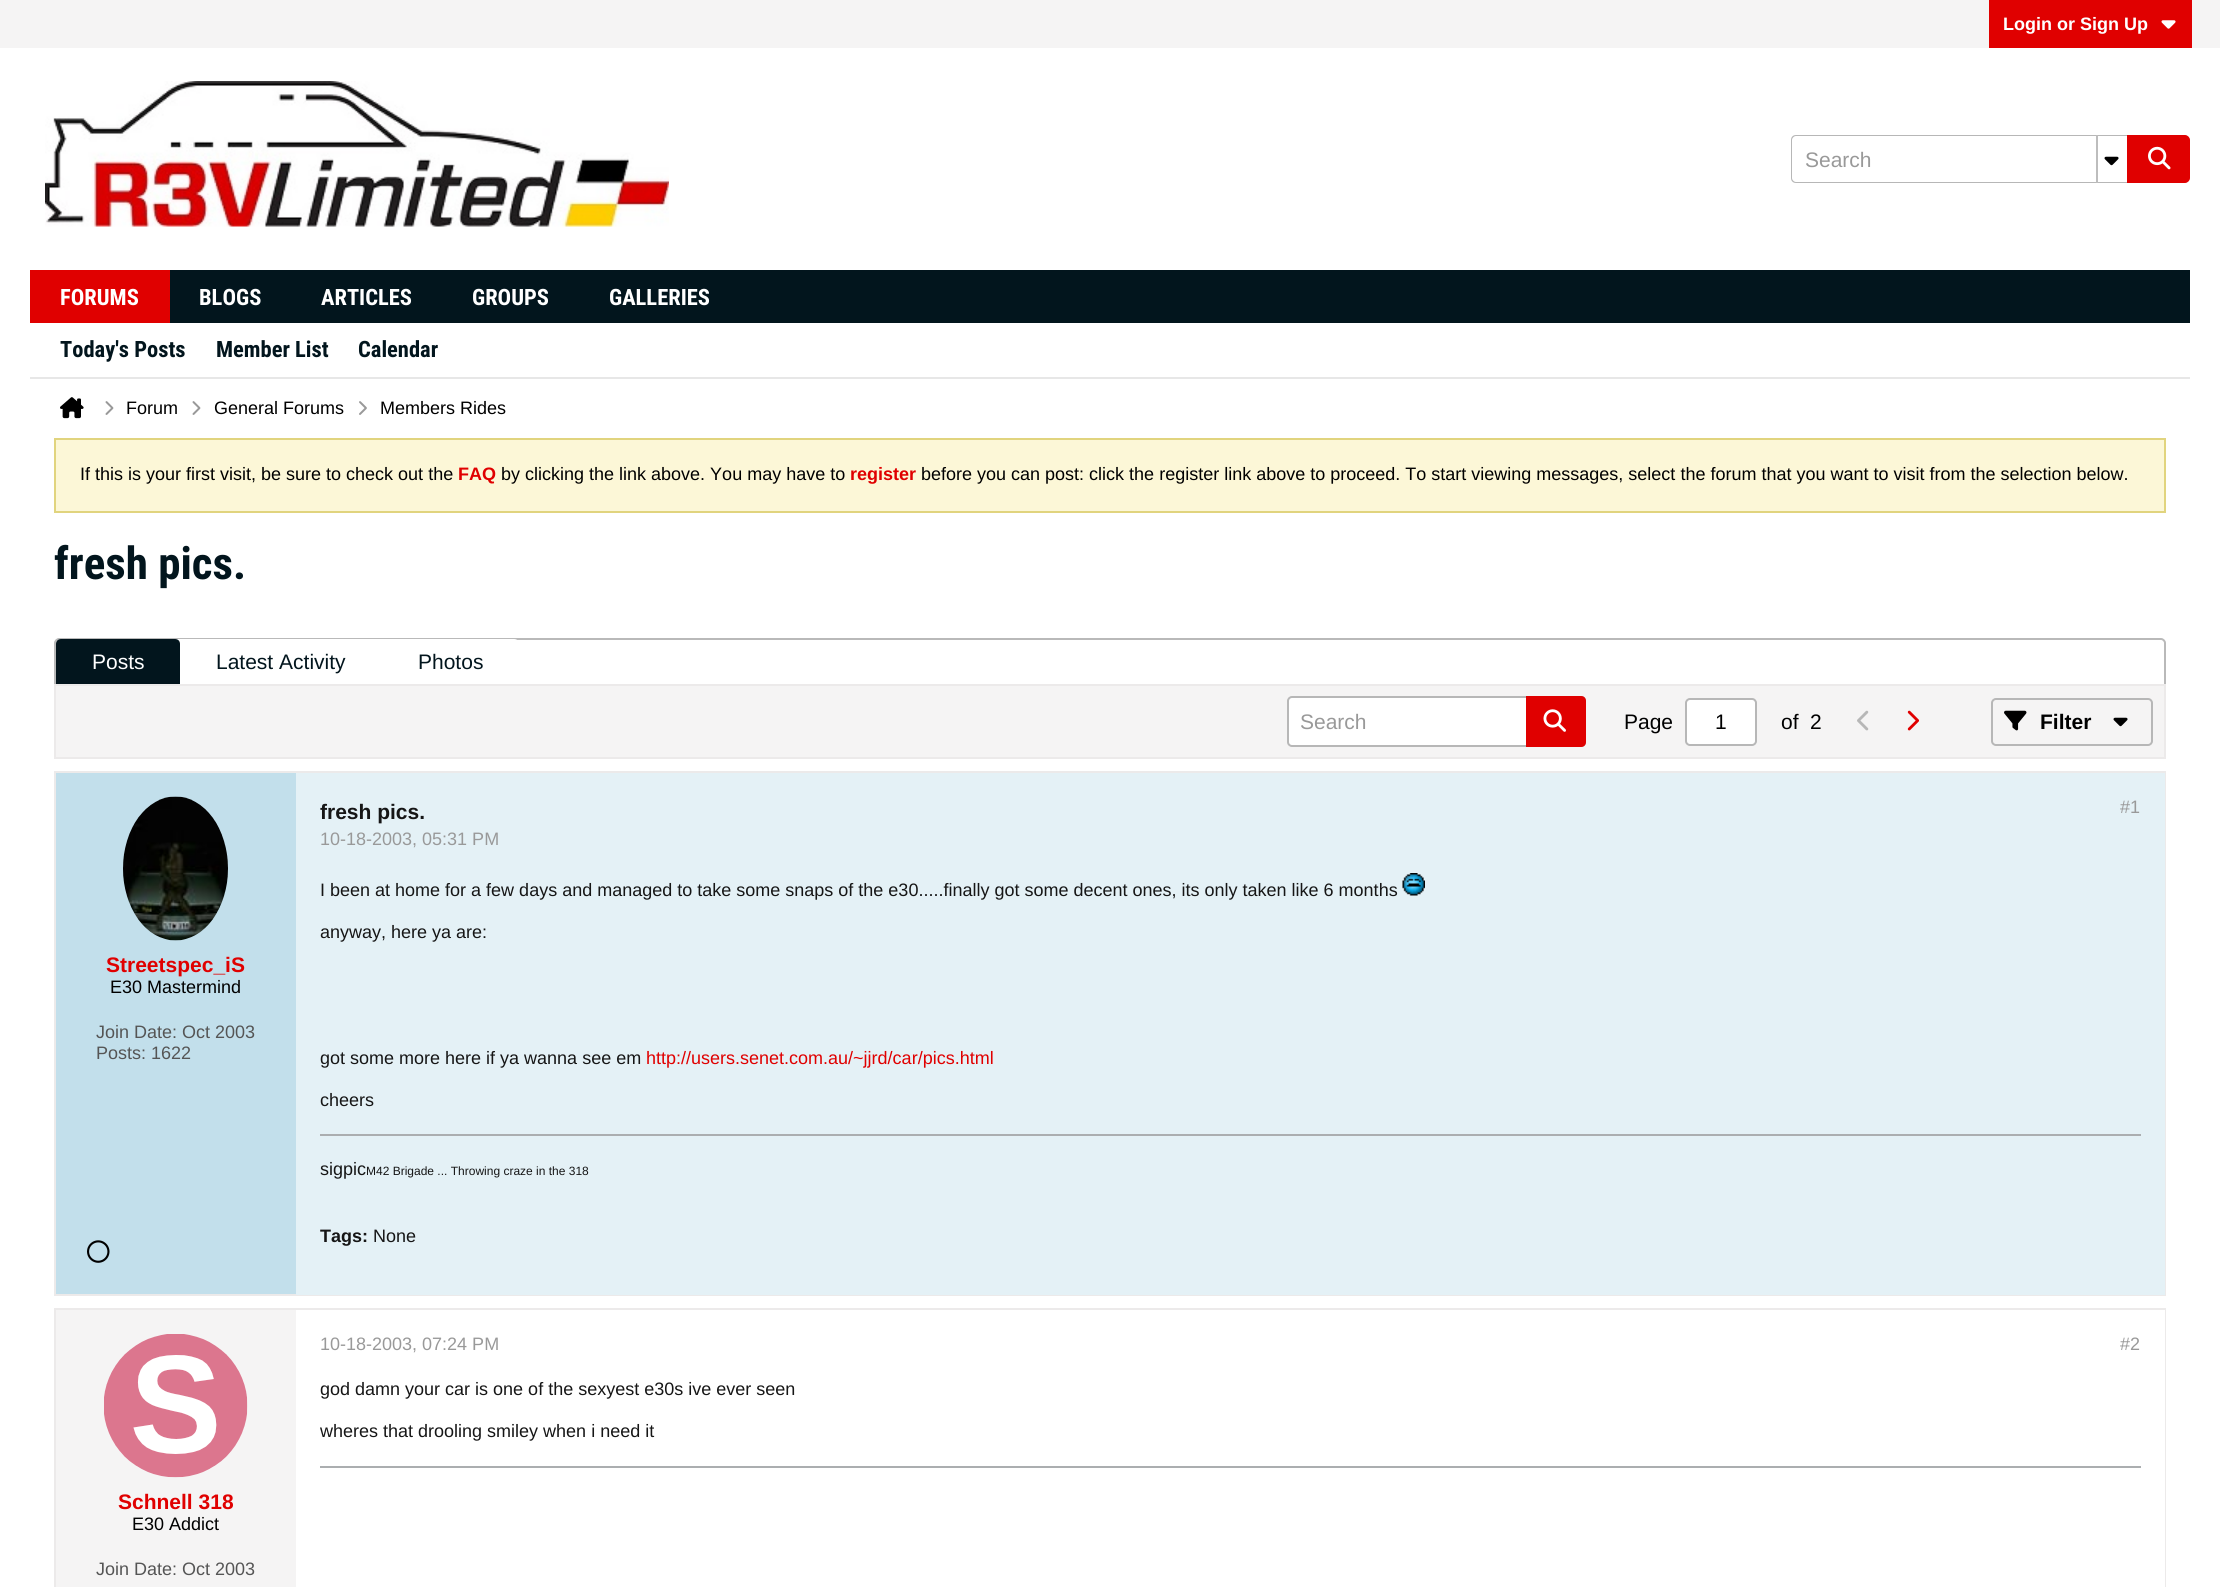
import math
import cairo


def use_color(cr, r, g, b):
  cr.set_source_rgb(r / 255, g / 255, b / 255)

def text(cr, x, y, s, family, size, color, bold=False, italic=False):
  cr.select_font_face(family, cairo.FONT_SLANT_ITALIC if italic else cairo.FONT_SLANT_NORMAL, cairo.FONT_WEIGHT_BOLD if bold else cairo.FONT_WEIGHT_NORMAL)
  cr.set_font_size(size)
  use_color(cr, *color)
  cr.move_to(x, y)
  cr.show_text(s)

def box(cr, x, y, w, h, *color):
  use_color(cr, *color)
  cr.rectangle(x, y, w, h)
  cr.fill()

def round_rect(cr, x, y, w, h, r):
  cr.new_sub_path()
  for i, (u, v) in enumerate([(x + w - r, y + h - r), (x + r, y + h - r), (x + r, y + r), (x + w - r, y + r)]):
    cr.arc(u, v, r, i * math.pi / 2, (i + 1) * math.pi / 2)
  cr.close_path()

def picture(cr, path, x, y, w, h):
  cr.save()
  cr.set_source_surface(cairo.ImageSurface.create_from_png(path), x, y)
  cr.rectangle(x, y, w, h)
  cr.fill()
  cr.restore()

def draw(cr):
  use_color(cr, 255, 255, 255)
  cr.paint()
  box(cr, 0, 0, 2220, 48, 245, 244, 244)
  box(cr, 1989, 0, 203, 48, 224, 0, 0)
  picture(cr, "img_01.png", 2161, 20, 15, 9)
  picture(cr, "img_02.png", 45, 81, 624, 146)
  use_color(cr, 183, 183, 183)
  cr.set_fill_rule(cairo.FILL_RULE_EVEN_ODD)
  cr.new_path()
  cr.move_to(1796, 135)
  cr.line_to(2127, 135)
  cr.line_to(2127, 183)
  cr.line_to(1796, 183)
  cr.curve_to(1793, 183, 1791, 181, 1791, 178)
  cr.line_to(1791, 140)
  cr.curve_to(1791, 137, 1793, 135, 1796, 135)
  cr.close_path()
  cr.move_to(1796, 136)
  cr.line_to(2127, 136)
  cr.line_to(2127, 182)
  cr.line_to(1796, 182)
  cr.curve_to(1794, 182, 1792, 180, 1792, 178)
  cr.line_to(1792, 140)
  cr.curve_to(1792, 138, 1794, 136, 1796, 136)
  cr.close_path()
  cr.fill()
  box(cr, 2096, 135, 2, 48, 189, 189, 189)
  picture(cr, "img_03.png", 2104, 156, 15, 10)
  use_color(cr, 224, 0, 0)
  cr.new_path()
  cr.move_to(2128, 136)
  cr.line_to(2185, 136)
  cr.curve_to(2187, 136, 2189, 138, 2189, 140)
  cr.line_to(2189, 178)
  cr.curve_to(2189, 180, 2187, 182, 2185, 182)
  cr.line_to(2128, 182)
  cr.close_path()
  cr.fill_preserve()
  cr.stroke()
  picture(cr, "img_04.png", 2148, 146, 23, 24)
  box(cr, 170, 270, 2020, 53, 2, 21, 29)
  box(cr, 30, 270, 140, 53, 224, 0, 0)
  box(cr, 30, 377, 2160, 2, 231, 231, 231)
  picture(cr, "img_05.png", 60, 397, 24, 22)
  picture(cr, "img_06.png", 105, 401, 9, 14)
  picture(cr, "img_06.png", 192, 401, 9, 14)
  picture(cr, "img_07.png", 359, 401, 8, 14)
  use_color(cr, 252, 247, 215)
  cr.rectangle(55, 439, 2110, 73)
  cr.fill_preserve()
  use_color(cr, 225, 212, 126)
  cr.stroke()
  cr.new_path()
  cr.move_to(59, 639)
  cr.line_to(2161, 639)
  cr.curve_to(2163, 639, 2165, 641, 2165, 643)
  cr.line_to(2165, 685)
  cr.line_to(55, 685)
  cr.line_to(55, 643)
  cr.curve_to(55, 641, 57, 639, 59, 639)
  cr.close_path()
  use_color(cr, 185, 185, 185)
  cr.stroke()
  use_color(cr, 255, 255, 255)
  cr.new_path()
  cr.move_to(61, 639)
  cr.line_to(514, 639)
  cr.curve_to(517, 639, 519, 641, 519, 644)
  cr.line_to(519, 684)
  cr.line_to(56, 684)
  cr.line_to(56, 644)
  cr.curve_to(56, 641, 58, 639, 61, 639)
  cr.close_path()
  cr.fill()
  use_color(cr, 2, 21, 29)
  cr.new_path()
  cr.move_to(61, 639)
  cr.line_to(175, 639)
  cr.curve_to(178, 639, 180, 641, 180, 644)
  cr.line_to(180, 684)
  cr.line_to(56, 684)
  cr.line_to(56, 644)
  cr.curve_to(56, 641, 58, 639, 61, 639)
  cr.close_path()
  cr.fill()
  use_color(cr, 245, 244, 244)
  cr.rectangle(55, 685, 2110, 73)
  cr.fill_preserve()
  use_color(cr, 236, 234, 234)
  cr.stroke()
  use_color(cr, 255, 255, 255)
  round_rect(cr, 1288, 697, 297, 49, 4)
  cr.fill_preserve()
  use_color(cr, 183, 183, 183)
  cr.stroke()
  use_color(cr, 224, 0, 0)
  cr.new_path()
  cr.move_to(1526, 696)
  cr.line_to(1581, 696)
  cr.curve_to(1584, 696, 1586, 698, 1586, 701)
  cr.line_to(1586, 742)
  cr.curve_to(1586, 745, 1584, 747, 1581, 747)
  cr.line_to(1526, 747)
  cr.close_path()
  cr.fill()
  picture(cr, "img_08.png", 1543, 709, 23, 23)
  use_color(cr, 255, 255, 255)
  round_rect(cr, 1686, 699, 70, 46, 4)
  cr.fill_preserve()
  use_color(cr, 183, 183, 183)
  cr.stroke()
  picture(cr, "img_09.png", 1857, 710, 12, 21)
  picture(cr, "img_10.png", 1907, 710, 12, 21)
  round_rect(cr, 1992, 699, 160, 46, 4)
  cr.stroke()
  picture(cr, "img_11.png", 2004, 710, 23, 21)
  picture(cr, "img_12.png", 2113, 717, 15, 10)
  box(cr, 56, 773, 240, 521, 194, 223, 235)
  cr.rectangle(55, 772, 2110, 523)
  use_color(cr, 236, 234, 234)
  cr.stroke()
  picture(cr, "img_13.png", 123, 796, 105, 145)
  picture(cr, "img_14.png", 87, 1240, 23, 23)
  box(cr, 296, 773, 1869, 522, 228, 241, 246)
  picture(cr, "img_15.png", 1402, 873, 23, 23)
  box(cr, 320, 1134, 1821, 2, 171, 174, 176)
  box(cr, 56, 1310, 240, 277, 245, 244, 244)
  cr.rectangle(55, 1309, 2110, 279)
  use_color(cr, 236, 234, 234)
  cr.stroke()
  box(cr, 2164, 1310, 1, 277, 255, 255, 255)
  box(cr, 320, 1466, 1821, 2, 171, 174, 176)
  picture(cr, "img_16.png", 104, 1334, 144, 144)
  text(cr, 2003, 30, "Login or Sign Up", "Liberation Sans", 18, (255, 255, 255), bold=True)
  text(cr, 1805, 167, "Search", "Liberation Sans", 21, (153, 153, 153))
  text(cr, 60, 305, "FORUMS", "Roboto Condensed", 22.5, (255, 255, 255), bold=True)
  text(cr, 199, 305, "BLOGS", "Roboto Condensed", 22.5, (255, 255, 255), bold=True)
  text(cr, 321, 305, "ARTICLES", "Roboto Condensed", 22.5, (255, 255, 255), bold=True)
  text(cr, 472, 305, "GROUPS", "Roboto Condensed", 22.5, (255, 255, 255), bold=True)
  text(cr, 609, 305, "GALLERIES", "Roboto Condensed", 22.5, (255, 255, 255), bold=True)
  text(cr, 60, 357, "Today's Posts", "Roboto Condensed", 22.5, (2, 21, 29), bold=True)
  text(cr, 216, 357, "Member List", "Roboto Condensed", 22.5, (2, 21, 29), bold=True)
  text(cr, 358, 357, "Calendar", "Roboto Condensed", 22.5, (2, 21, 29), bold=True)
  text(cr, 126, 414, "Forum", "Liberation Sans", 18, (0, 0, 0))
  text(cr, 214, 414, "General Forums", "Liberation Sans", 18, (0, 0, 0))
  text(cr, 380, 414, "Members Rides", "Liberation Sans", 18, (0, 0, 0))
  text(cr, 80, 480, "If this is your first visit, be sure to check out the", "Liberation Sans", 18, (0, 0, 0))
  text(cr, 458, 480, "FAQ", "Liberation Sans", 18, (224, 0, 0), bold=True)
  text(cr, 501, 480, "by clicking the link above. You may have to", "Liberation Sans", 18, (0, 0, 0))
  text(cr, 850, 480, "register", "Liberation Sans", 18, (224, 0, 0), bold=True)
  text(cr, 921, 480, "before you can post: click the register link above to proceed. To start viewing messages, select the forum that you want to visit from the selection below.", "Liberation Sans", 18, (0, 0, 0))
  text(cr, 54, 579, "fresh pics.", "Roboto Condensed", 45, (2, 21, 29), bold=True)
  text(cr, 92, 669, "Posts", "Liberation Sans", 21, (255, 255, 255))
  text(cr, 216, 669, "Latest Activity", "Liberation Sans", 21, (2, 21, 29))
  text(cr, 418, 669, "Photos", "Liberation Sans", 21, (2, 21, 29))
  text(cr, 1300, 729, "Search", "Liberation Sans", 21, (153, 153, 153))
  text(cr, 1624, 729, "Page", "Liberation Sans", 21, (0, 0, 0))
  text(cr, 1715, 729, "1", "Liberation Sans", 21, (0, 0, 0))
  text(cr, 1781, 729, "of", "Liberation Sans", 21, (0, 0, 0))
  text(cr, 1810, 729, "2", "Liberation Sans", 21, (0, 0, 0))
  text(cr, 2040, 729, "Filter", "Liberation Sans", 21, (0, 0, 0), bold=True)
  text(cr, 106, 972, "Streetspec_iS", "Liberation Sans", 21, (224, 0, 0), bold=True)
  text(cr, 110, 993, "E30 Mastermind", "Liberation Sans", 18, (0, 0, 0))
  text(cr, 96, 1038, "Join Date: Oct 2003", "Liberation Sans", 18, (85, 85, 85))
  text(cr, 96, 1059, "Posts: 1622", "Liberation Sans", 18, (85, 85, 85))
  text(cr, 320, 819, "fresh pics.", "Liberation Sans", 21, (22, 22, 22), bold=True)
  text(cr, 320, 845, "10-18-2003, 05:31 PM", "Liberation Sans", 18, (153, 153, 153))
  text(cr, 2120, 813, "#1", "Liberation Sans", 18, (153, 153, 153))
  text(cr, 320, 896, "I been at home for a few days and managed to take some snaps of the e30.....finally got some decent ones, its only taken like 6 months", "Liberation Sans", 18, (22, 22, 22))
  text(cr, 320, 938, "anyway, here ya are:", "Liberation Sans", 18, (22, 22, 22))
  text(cr, 320, 1064, "got some more here if ya wanna see em", "Liberation Sans", 18, (22, 22, 22))
  text(cr, 646, 1064, "http://users.senet.com.au/~jjrd/car/pics.html", "Liberation Sans", 18, (224, 0, 0))
  text(cr, 320, 1106, "cheers", "Liberation Sans", 18, (22, 22, 22))
  text(cr, 320, 1175, "sigpic", "Liberation Sans", 18, (22, 22, 22))
  text(cr, 366, 1175, "M42 Brigade ... Throwing craze in the 318", "Liberation Sans", 12, (22, 22, 22))
  text(cr, 320, 1242, "Tags:", "Liberation Sans", 18, (22, 22, 22), bold=True)
  text(cr, 373, 1242, "None", "Liberation Sans", 18, (22, 22, 22))
  text(cr, 320, 1350, "10-18-2003, 07:24 PM", "Liberation Sans", 18, (153, 153, 153))
  text(cr, 2120, 1350, "#2", "Liberation Sans", 18, (153, 153, 153))
  text(cr, 320, 1395, "god damn your car is one of the sexyest e30s ive ever seen", "Liberation Sans", 18, (22, 22, 22))
  text(cr, 320, 1437, "wheres that drooling smiley when i need it", "Liberation Sans", 18, (22, 22, 22))
  text(cr, 118, 1509, "Schnell 318", "Liberation Sans", 21, (224, 0, 0), bold=True)
  text(cr, 132, 1530, "E30 Addict", "Liberation Sans", 18, (0, 0, 0))
  text(cr, 96, 1575, "Join Date: Oct 2003", "Liberation Sans", 18, (85, 85, 85))


surface = cairo.ImageSurface(cairo.FORMAT_RGB24, 2220, 1587)
cr = cairo.Context(surface)
options = cairo.FontOptions()
options.set_hint_metrics(cairo.HINT_METRICS_OFF)
options.set_hint_style(cairo.HINT_STYLE_NONE)
cr.set_font_options(options)
cr.set_miter_limit(4)
draw(cr)
surface.write_to_png("out.png")
